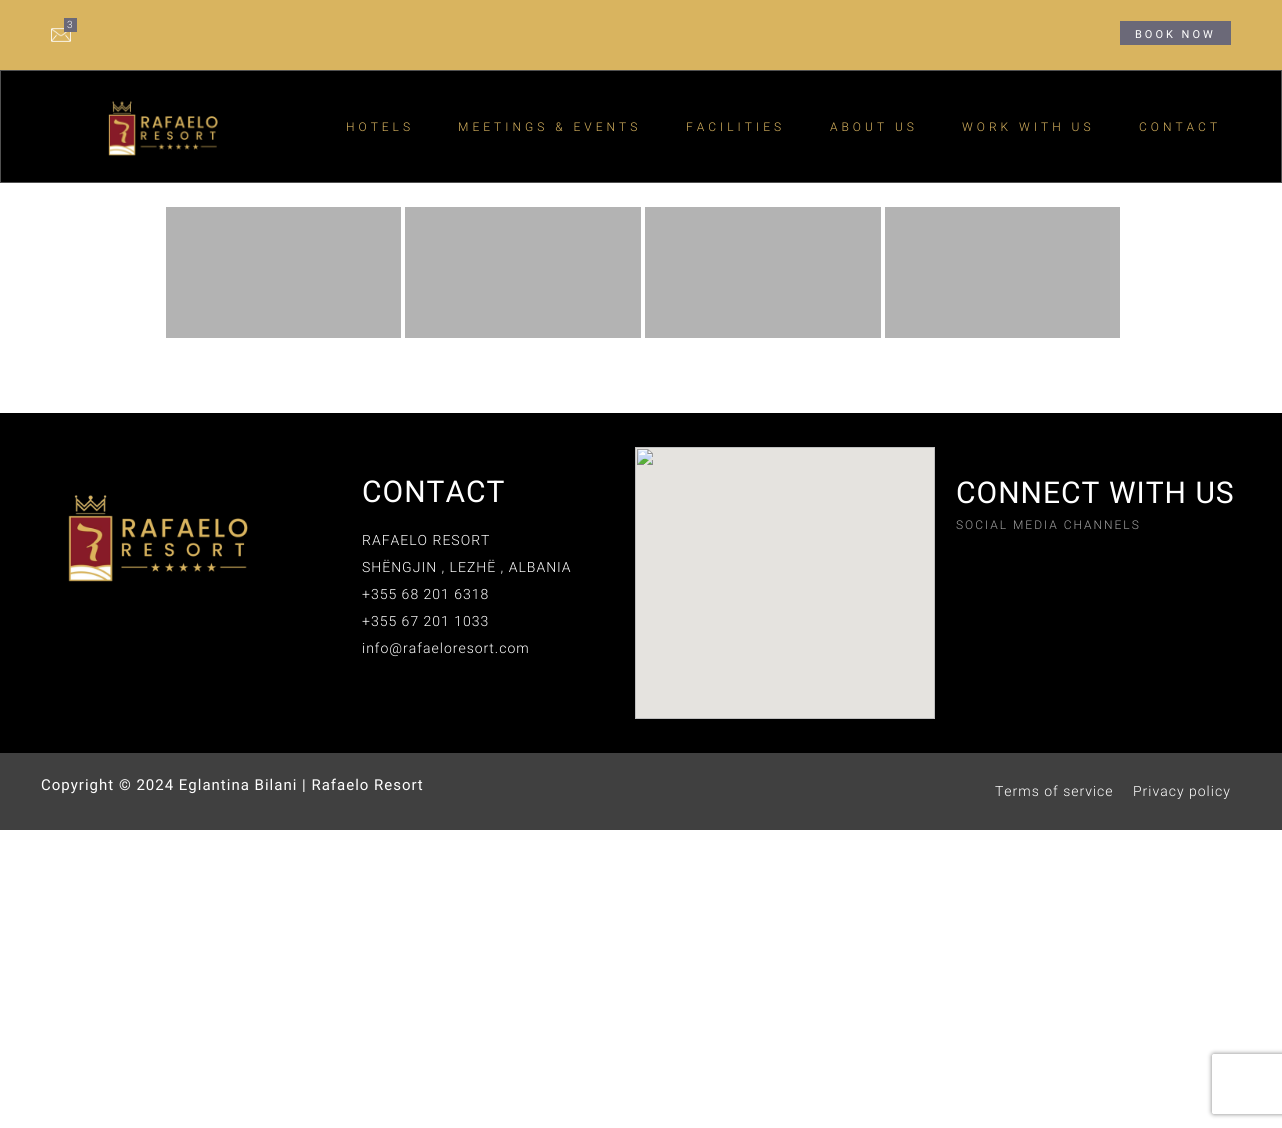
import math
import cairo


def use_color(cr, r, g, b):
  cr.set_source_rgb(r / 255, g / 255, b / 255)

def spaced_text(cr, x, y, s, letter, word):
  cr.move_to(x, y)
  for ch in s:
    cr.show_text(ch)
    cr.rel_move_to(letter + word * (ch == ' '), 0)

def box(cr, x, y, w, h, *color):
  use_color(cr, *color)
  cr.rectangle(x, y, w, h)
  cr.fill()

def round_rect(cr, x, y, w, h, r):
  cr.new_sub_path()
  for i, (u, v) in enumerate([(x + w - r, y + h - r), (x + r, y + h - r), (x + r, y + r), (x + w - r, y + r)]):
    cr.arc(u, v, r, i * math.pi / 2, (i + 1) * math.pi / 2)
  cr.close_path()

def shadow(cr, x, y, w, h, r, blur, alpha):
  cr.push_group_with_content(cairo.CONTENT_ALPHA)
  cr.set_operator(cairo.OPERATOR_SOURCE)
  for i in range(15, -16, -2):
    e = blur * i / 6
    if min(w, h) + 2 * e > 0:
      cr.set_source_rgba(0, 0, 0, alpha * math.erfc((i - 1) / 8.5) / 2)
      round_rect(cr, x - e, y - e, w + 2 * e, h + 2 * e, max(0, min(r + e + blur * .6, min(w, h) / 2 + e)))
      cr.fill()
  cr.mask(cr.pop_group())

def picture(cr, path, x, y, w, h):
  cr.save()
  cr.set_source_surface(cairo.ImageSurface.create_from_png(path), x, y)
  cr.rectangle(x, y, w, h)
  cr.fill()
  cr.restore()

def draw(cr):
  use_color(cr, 255, 255, 255)
  cr.paint()
  box(cr, 0, 0, 1282, 70, 217, 180, 95)
  picture(cr, "img_01.png", 51, 28, 20, 14)
  box(cr, 64, 18, 13, 14, 107, 105, 120)
  box(cr, 1120, 21, 111, 24, 107, 105, 120)
  use_color(cr, 0, 0, 0)
  cr.rectangle(0.5, 70.5, 1281, 112)
  cr.fill_preserve()
  use_color(cr, 81, 81, 81)
  cr.set_line_width(1)
  cr.stroke()
  picture(cr, "img_02.png", 108, 101, 110, 55)
  box(cr, 166, 207, 235, 131, 179, 179, 179)
  box(cr, 405, 207, 236, 131, 179, 179, 179)
  box(cr, 645, 207, 236, 131, 179, 179, 179)
  box(cr, 885, 207, 235, 131, 179, 179, 179)
  box(cr, 0, 413, 1282, 340, 0, 0, 0)
  picture(cr, "img_03.png", 68, 495, 180, 87)
  picture(cr, "img_04.png", 635, 447, 300, 272)
  box(cr, 0, 753, 1282, 77, 64, 64, 64)
  cr.save()
  cr.set_fill_rule(cairo.FILL_RULE_EVEN_ODD)
  cr.new_path()
  cr.move_to(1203, 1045)
  cr.line_to(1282, 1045)
  cr.line_to(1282, 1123)
  cr.line_to(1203, 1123)
  cr.close_path()
  cr.move_to(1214, 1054)
  cr.line_to(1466, 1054)
  cr.curve_to(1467, 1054, 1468, 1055, 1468, 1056)
  cr.line_to(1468, 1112)
  cr.curve_to(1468, 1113, 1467, 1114, 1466, 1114)
  cr.line_to(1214, 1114)
  cr.curve_to(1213, 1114, 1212, 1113, 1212, 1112)
  cr.line_to(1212, 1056)
  cr.curve_to(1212, 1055, 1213, 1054, 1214, 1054)
  cr.close_path()
  cr.clip()
  use_color(cr, 128, 128, 128)
  shadow(cr, 1212, 1054, 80, 60, 2, 2.5, 1)
  cr.restore()
  cr.select_font_face("Roboto Light")
  cr.set_font_size(10)
  use_color(cr, 255, 255, 255)
  spaced_text(cr, 67, 28, "3", 1, 0)
  cr.select_font_face("Roboto")
  cr.set_font_size(11)
  spaced_text(cr, 1135, 38, "BOOK NOW", 3, 0)
  cr.select_font_face("Roboto Light")
  cr.set_font_size(12)
  use_color(cr, 217, 180, 95)
  spaced_text(cr, 346, 131, "HOTELS", 4, 0)
  spaced_text(cr, 458, 131, "MEETINGS & EVENTS", 4, 0)
  spaced_text(cr, 686, 131, "FACILITIES", 4, 0)
  spaced_text(cr, 830, 131, "ABOUT US", 4, 0)
  spaced_text(cr, 962, 131, "WORK WITH US", 4, 0)
  spaced_text(cr, 1139, 131, "CONTACT", 4, 0)
  cr.select_font_face("Roboto")
  cr.set_font_size(30)
  use_color(cr, 255, 255, 255)
  spaced_text(cr, 362, 502, "CONTACT", 1, 0)
  cr.select_font_face("Roboto Light")
  cr.set_font_size(14)
  spaced_text(cr, 362, 545, "RAFAELO RESORT", 1, 0)
  spaced_text(cr, 362, 572, "SHËNGJIN , LEZHË , ALBANIA", 1, 0)
  spaced_text(cr, 362, 599, "+355 68 201 6318", 1, 0)
  spaced_text(cr, 362, 626, "+355 67 201 1033", 1, 0)
  spaced_text(cr, 362, 653, "info@rafaeloresort.com", 1, 0)
  cr.select_font_face("Roboto")
  cr.set_font_size(30)
  spaced_text(cr, 956, 503, "CONNECT WITH US", 1, 0)
  cr.select_font_face("Roboto Light")
  cr.set_font_size(12)
  use_color(cr, 163, 163, 163)
  spaced_text(cr, 956, 529, "SOCIAL MEDIA CHANNELS", 2, 0)
  cr.select_font_face("Roboto")
  cr.set_font_size(15)
  use_color(cr, 255, 255, 255)
  spaced_text(cr, 41, 790, "Copyright © 2024 Eglantina Bilani | Rafaelo Resort", 1, 0)
  cr.select_font_face("Roboto Light")
  cr.set_font_size(14)
  spaced_text(cr, 995, 796, "Terms of service", 1, 0)
  spaced_text(cr, 1133, 796, "Privacy policy", 1, 0)


surface = cairo.ImageSurface(cairo.FORMAT_RGB24, 1282, 1128)
cr = cairo.Context(surface)
options = cairo.FontOptions()
options.set_hint_metrics(cairo.HINT_METRICS_OFF)
options.set_hint_style(cairo.HINT_STYLE_NONE)
cr.set_font_options(options)
cr.set_miter_limit(4)
draw(cr)
surface.write_to_png("out.png")
